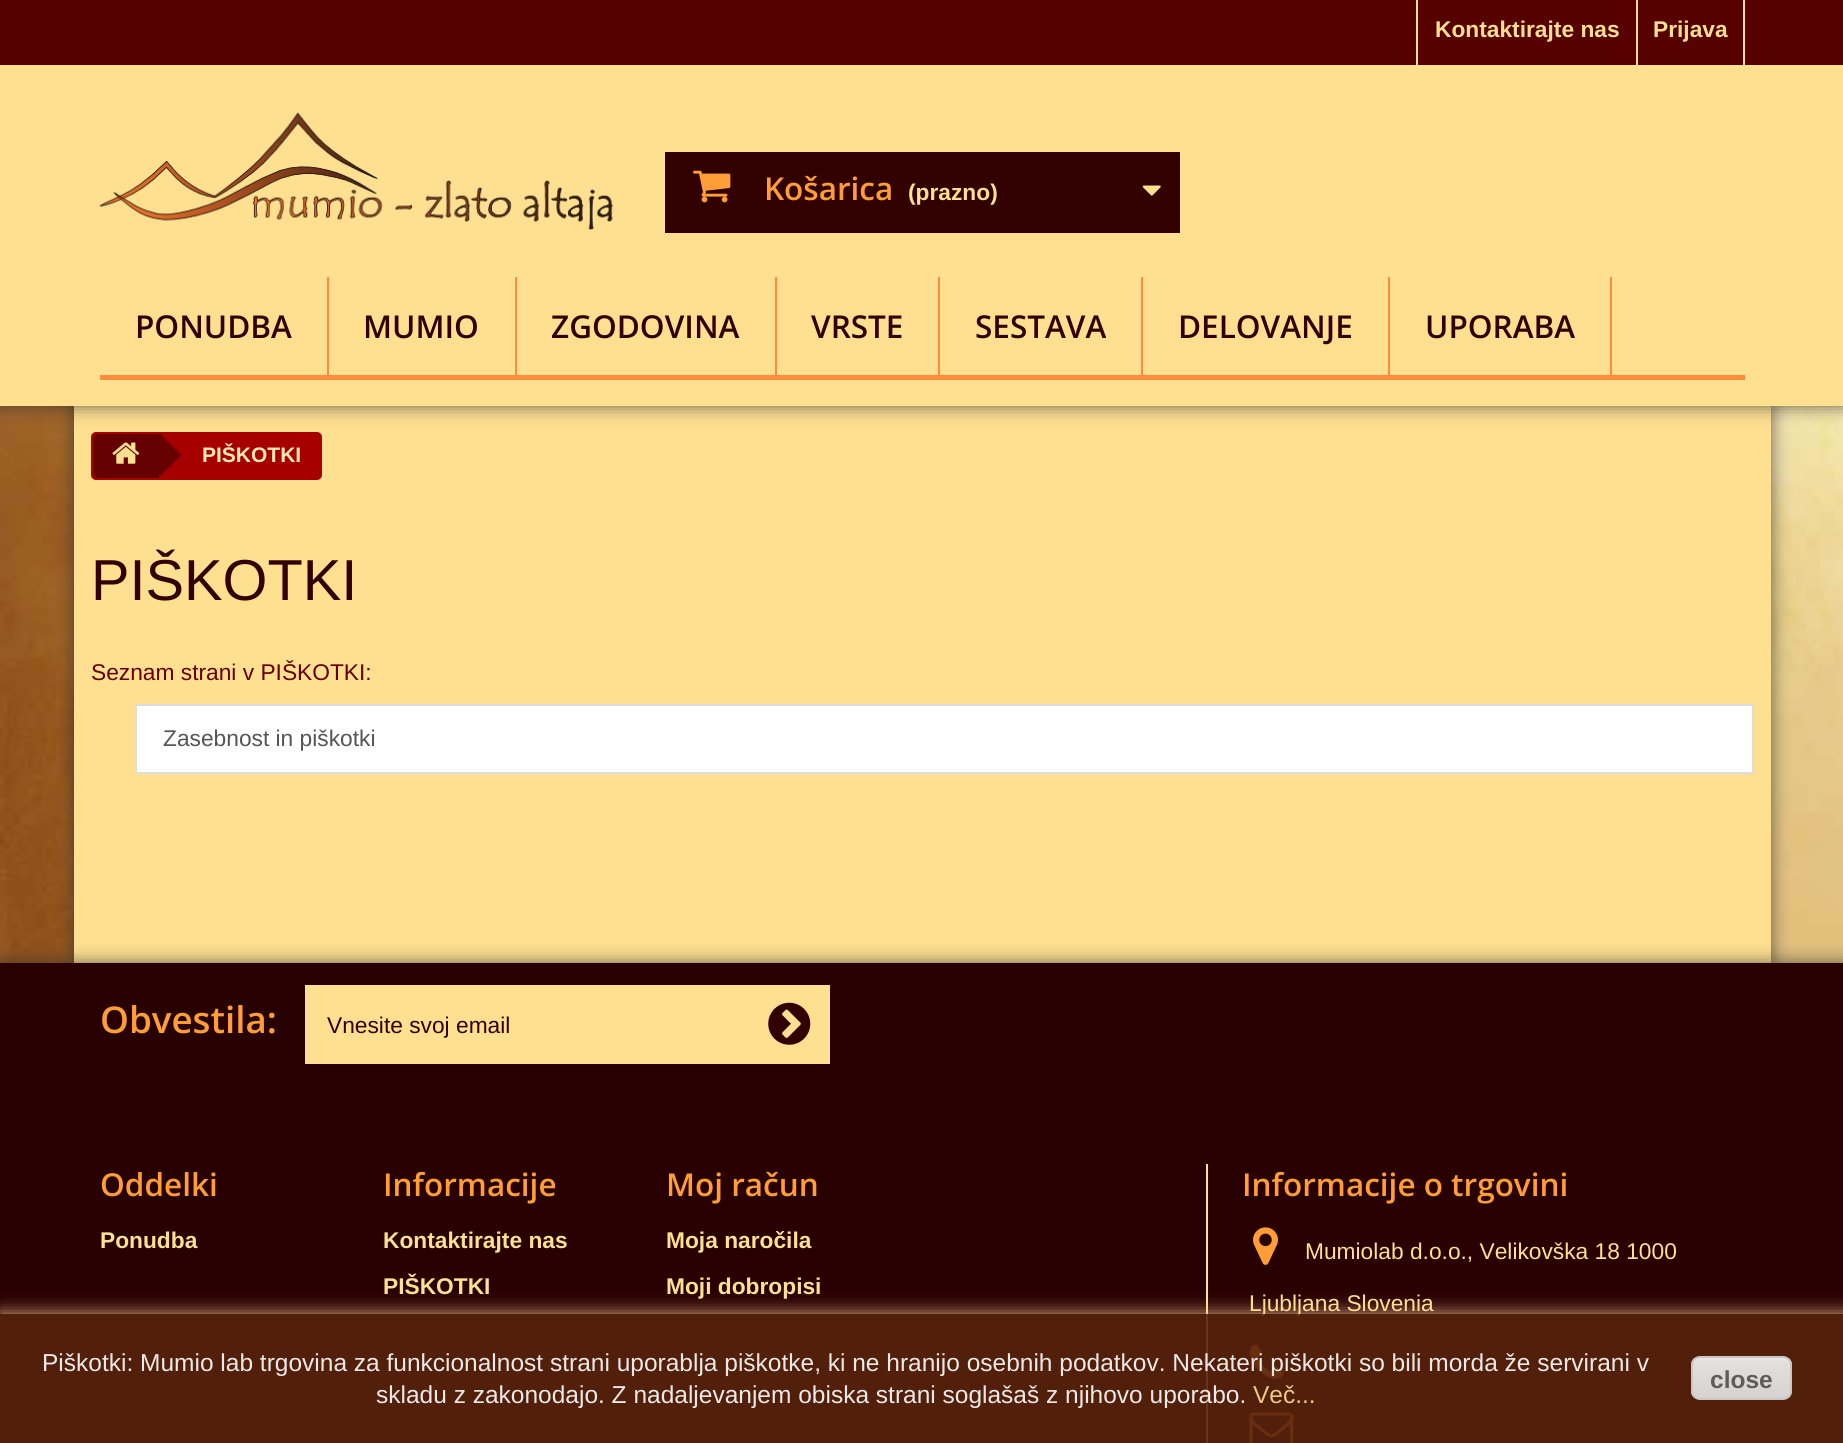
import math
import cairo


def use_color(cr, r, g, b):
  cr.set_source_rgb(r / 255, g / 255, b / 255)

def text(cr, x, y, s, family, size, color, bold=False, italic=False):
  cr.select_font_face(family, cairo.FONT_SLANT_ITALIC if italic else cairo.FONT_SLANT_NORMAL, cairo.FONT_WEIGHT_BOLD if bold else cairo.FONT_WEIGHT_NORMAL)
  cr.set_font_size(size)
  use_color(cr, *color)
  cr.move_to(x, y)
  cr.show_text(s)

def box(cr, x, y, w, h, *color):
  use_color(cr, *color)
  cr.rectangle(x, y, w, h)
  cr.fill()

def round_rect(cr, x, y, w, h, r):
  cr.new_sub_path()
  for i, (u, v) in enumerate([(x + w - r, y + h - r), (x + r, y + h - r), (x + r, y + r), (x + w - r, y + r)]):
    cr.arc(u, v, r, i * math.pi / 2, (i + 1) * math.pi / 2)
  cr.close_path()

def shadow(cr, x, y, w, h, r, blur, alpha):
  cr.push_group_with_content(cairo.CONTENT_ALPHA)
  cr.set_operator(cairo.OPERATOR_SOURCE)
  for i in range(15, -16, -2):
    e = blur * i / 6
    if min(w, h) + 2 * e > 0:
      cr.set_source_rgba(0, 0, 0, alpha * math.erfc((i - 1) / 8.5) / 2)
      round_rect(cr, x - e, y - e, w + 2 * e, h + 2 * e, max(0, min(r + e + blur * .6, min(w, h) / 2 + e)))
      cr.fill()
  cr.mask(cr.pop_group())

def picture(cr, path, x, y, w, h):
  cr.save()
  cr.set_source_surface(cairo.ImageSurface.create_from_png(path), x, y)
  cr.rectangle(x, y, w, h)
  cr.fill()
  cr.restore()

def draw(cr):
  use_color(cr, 255, 255, 255)
  cr.paint()
  picture(cr, "img_01.png", 0, 406, 1843, 557)
  use_color(cr, 50, 50, 50)
  shadow(cr, 74, 406, 1697, 557, 0, 9, 0.75)
  box(cr, 74, 406, 1697, 557, 255, 224, 145)
  use_color(cr, 166, 0, 0)
  round_rect(cr, 92, 433, 229, 46, 4)
  cr.fill_preserve()
  use_color(cr, 168, 0, 0)
  cr.stroke()
  use_color(cr, 50, 50, 50)
  shadow(cr, 0, 0, 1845, 406, 0, 9, 0.75)
  box(cr, 0, 65, 1843, 341, 255, 224, 145)
  box(cr, 0, 0, 1843, 65, 87, 0, 0)
  box(cr, 1416, 0, 2, 65, 255, 224, 145)
  box(cr, 1743, 0, 2, 65, 255, 224, 145)
  box(cr, 1636, 0, 2, 65, 255, 224, 145)
  picture(cr, "img_02.png", 99, 112, 514, 118)
  box(cr, 665, 152, 515, 81, 51, 0, 0)
  picture(cr, "img_03.png", 693, 170, 38, 33)
  picture(cr, "img_04.png", 1142, 185, 19, 11)
  box(cr, 100, 375, 1645, 5, 255, 139, 61)
  box(cr, 327, 277, 2, 103, 255, 139, 61)
  box(cr, 515, 277, 2, 103, 255, 139, 61)
  box(cr, 775, 277, 2, 103, 255, 139, 61)
  box(cr, 938, 277, 2, 103, 255, 139, 61)
  box(cr, 1141, 277, 2, 103, 255, 139, 61)
  box(cr, 1388, 277, 2, 103, 255, 139, 61)
  box(cr, 1610, 277, 2, 103, 255, 139, 61)
  cr.save()
  round_rect(cr, 93, 434, 227, 44, 4)
  cr.clip()
  use_color(cr, 102, 0, 0)
  cr.new_path()
  cr.move_to(98, 434)
  cr.line_to(159, 434)
  cr.line_to(159, 478)
  cr.line_to(98, 478)
  cr.curve_to(95, 478, 93, 476, 93, 473)
  cr.line_to(93, 439)
  cr.curve_to(93, 436, 95, 434, 98, 434)
  cr.close_path()
  cr.fill()
  cr.restore()
  picture(cr, "img_05.png", 112, 442, 28, 22)
  use_color(cr, 102, 0, 0)
  cr.new_path()
  cr.move_to(163, 435)
  cr.line_to(181, 453)
  cr.curve_to(182, 454, 182, 456, 181, 457)
  cr.line_to(163, 475)
  cr.curve_to(162, 476, 160, 476, 159, 475)
  cr.line_to(141, 457)
  cr.curve_to(140, 456, 140, 454, 141, 453)
  cr.line_to(159, 435)
  cr.curve_to(160, 434, 162, 434, 163, 435)
  cr.close_path()
  cr.fill()
  use_color(cr, 168, 0, 0)
  cr.new_path()
  cr.move_to(162, 434)
  cr.line_to(182, 454)
  cr.line_to(181, 455)
  cr.line_to(161, 435)
  cr.close_path()
  cr.move_to(181, 455)
  cr.line_to(182, 456)
  cr.line_to(162, 476)
  cr.line_to(161, 475)
  cr.close_path()
  cr.fill()
  use_color(cr, 255, 255, 255)
  cr.rectangle(136, 705, 1617, 68)
  cr.fill_preserve()
  use_color(cr, 221, 221, 221)
  cr.stroke()
  use_color(cr, 50, 50, 50)
  shadow(cr, 0, 963, 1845, 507, 0, 9, 0.75)
  box(cr, 0, 963, 1843, 480, 41, 0, 0)
  box(cr, 305, 985, 525, 79, 255, 224, 145)
  picture(cr, "img_06.png", 768, 1002, 43, 43)
  box(cr, 1206, 1164, 2, 279, 255, 224, 145)
  picture(cr, "img_07.png", 1253, 1227, 25, 38)
  picture(cr, "img_08.png", 1249, 1344, 35, 35)
  picture(cr, "img_09.png", 1249, 1412, 45, 31)
  cr.save()
  cr.set_fill_rule(cairo.FILL_RULE_EVEN_ODD)
  cr.new_path()
  cr.move_to(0, 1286)
  cr.line_to(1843, 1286)
  cr.line_to(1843, 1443)
  cr.line_to(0, 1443)
  cr.close_path()
  cr.move_to(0, 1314)
  cr.line_to(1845, 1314)
  cr.line_to(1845, 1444)
  cr.line_to(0, 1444)
  cr.close_path()
  cr.clip()
  use_color(cr, 255, 205, 156)
  shadow(cr, 0, 1314, 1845, 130, 0, 9, 0.9)
  cr.restore()
  text(cr, 1435, 37, "Kontaktirajte nas", "Liberation Sans", 22.75, (255, 224, 145), bold=True)
  text(cr, 1653, 37, "Prijava", "Liberation Sans", 22.75, (255, 224, 145), bold=True)
  text(cr, 764, 200, "Košarica", "Open Sans SemiBold", 31.5, (255, 158, 54))
  text(cr, 908, 200, "(prazno)", "Liberation Sans", 22.75, (255, 224, 145), bold=True)
  text(cr, 135, 338, "PONUDBA", "Open Sans SemiBold", 31.5, (51, 0, 0))
  text(cr, 363, 338, "MUMIO", "Open Sans SemiBold", 31.5, (51, 0, 0))
  text(cr, 551, 338, "ZGODOVINA", "Open Sans SemiBold", 31.5, (51, 0, 0))
  text(cr, 811, 338, "VRSTE", "Open Sans SemiBold", 31.5, (51, 0, 0))
  text(cr, 975, 338, "SESTAVA", "Open Sans SemiBold", 31.5, (51, 0, 0))
  text(cr, 1178, 338, "DELOVANJE", "Open Sans SemiBold", 31.5, (51, 0, 0))
  text(cr, 1425, 338, "UPORABA", "Open Sans SemiBold", 31.5, (51, 0, 0))
  text(cr, 202, 462, "PIŠKOTKI", "Liberation Sans", 21, (255, 234, 181), bold=True)
  text(cr, 91, 600, "PIŠKOTKI", "Liberation Sans", 57.75, (51, 0, 0))
  text(cr, 91, 680, "Seznam strani v PIŠKOTKI:", "Liberation Sans", 22.75, (102, 0, 0))
  text(cr, 163, 746, "Zasebnost in piškotki", "Liberation Sans", 22.75, (85, 85, 85))
  text(cr, 100, 1033, "Obvestila:", "Open Sans SemiBold", 36.75, (255, 158, 54))
  text(cr, 327, 1033, "Vnesite svoj email", "Liberation Sans", 22.75, (51, 0, 0))
  text(cr, 100, 1196, "Oddelki", "Open Sans SemiBold", 31.5, (255, 158, 54))
  text(cr, 100, 1248, "Ponudba", "Liberation Sans", 22.75, (255, 224, 145), bold=True)
  text(cr, 383, 1196, "Informacije", "Open Sans SemiBold", 31.5, (255, 158, 54))
  text(cr, 383, 1248, "Kontaktirajte nas", "Liberation Sans", 22.75, (255, 224, 145), bold=True)
  text(cr, 383, 1294, "PIŠKOTKI", "Liberation Sans", 22.75, (255, 224, 145), bold=True)
  text(cr, 666, 1196, "Moj račun", "Open Sans SemiBold", 31.5, (255, 158, 54))
  text(cr, 666, 1248, "Moja naročila", "Liberation Sans", 22.75, (255, 224, 145), bold=True)
  text(cr, 666, 1294, "Moji dobropisi", "Liberation Sans", 22.75, (255, 224, 145), bold=True)
  text(cr, 1242, 1196, "Informacije o trgovini", "Open Sans SemiBold", 31.5, (255, 158, 54))
  text(cr, 1305, 1259, "Mumiolab d.o.o., Velikovška 18 1000", "Liberation Sans", 22.75, (255, 224, 145))
  text(cr, 1249, 1311, "Ljubljana Slovenia", "Liberation Sans", 22.75, (255, 224, 145))
  cr.set_source_rgba(0.341, 0.137, 0.051, 0.9)
  cr.rectangle(0, 1314, 1843, 129)
  cr.fill()
  text(cr, 42, 1371, "Piškotki: Mumio lab trgovina za funkcionalnost strani uporablja piškotke, ki ne hranijo osebnih podatkov. Nekateri piškotki so bili morda že servirani v", "Liberation Sans", 24.5, (238, 233, 231))
  text(cr, 376, 1403, "skladu z zakonodajo. Z nadaljevanjem obiska strani soglašaš z njihovo uporabo.", "Liberation Sans", 24.5, (238, 233, 231))
  text(cr, 1253, 1403, "Več...", "Liberation Sans", 24.5, (234, 202, 131))
  cr.save()
  round_rect(cr, 1691, 1356, 101, 44, 9)
  cr.clip()
  gradient = cairo.LinearGradient(1692, 1358, 1692, 1398)
  gradient.add_color_stop_rgba(0.05, 0.894, 0.878, 0.878, 1)
  gradient.add_color_stop_rgba(1, 0.839, 0.824, 0.824, 1)
  cr.set_source(gradient)
  cr.rectangle(1691, 1358, 101, 40)
  cr.fill()
  cr.restore()
  use_color(cr, 234, 230, 230)
  cr.new_path()
  cr.move_to(1699, 1360)
  cr.line_to(1783, 1360)
  cr.curve_to(1787, 1360, 1790, 1363, 1790, 1367)
  cr.curve_to(1790, 1355, 1779, 1358, 1769, 1358)
  cr.line_to(1713, 1358)
  cr.curve_to(1703, 1358, 1692, 1355, 1692, 1367)
  cr.curve_to(1692, 1363, 1695, 1360, 1699, 1360)
  cr.close_path()
  cr.fill()
  round_rect(cr, 1692, 1357, 99, 42, 8)
  use_color(cr, 202, 198, 198)
  cr.stroke()
  text(cr, 1710, 1388, "close", "Liberation Sans", 24.5, (96, 92, 92), bold=True)


surface = cairo.ImageSurface(cairo.FORMAT_RGB24, 1843, 1443)
cr = cairo.Context(surface)
options = cairo.FontOptions()
options.set_hint_metrics(cairo.HINT_METRICS_OFF)
options.set_hint_style(cairo.HINT_STYLE_NONE)
cr.set_font_options(options)
cr.set_miter_limit(4)
draw(cr)
surface.write_to_png("out.png")
